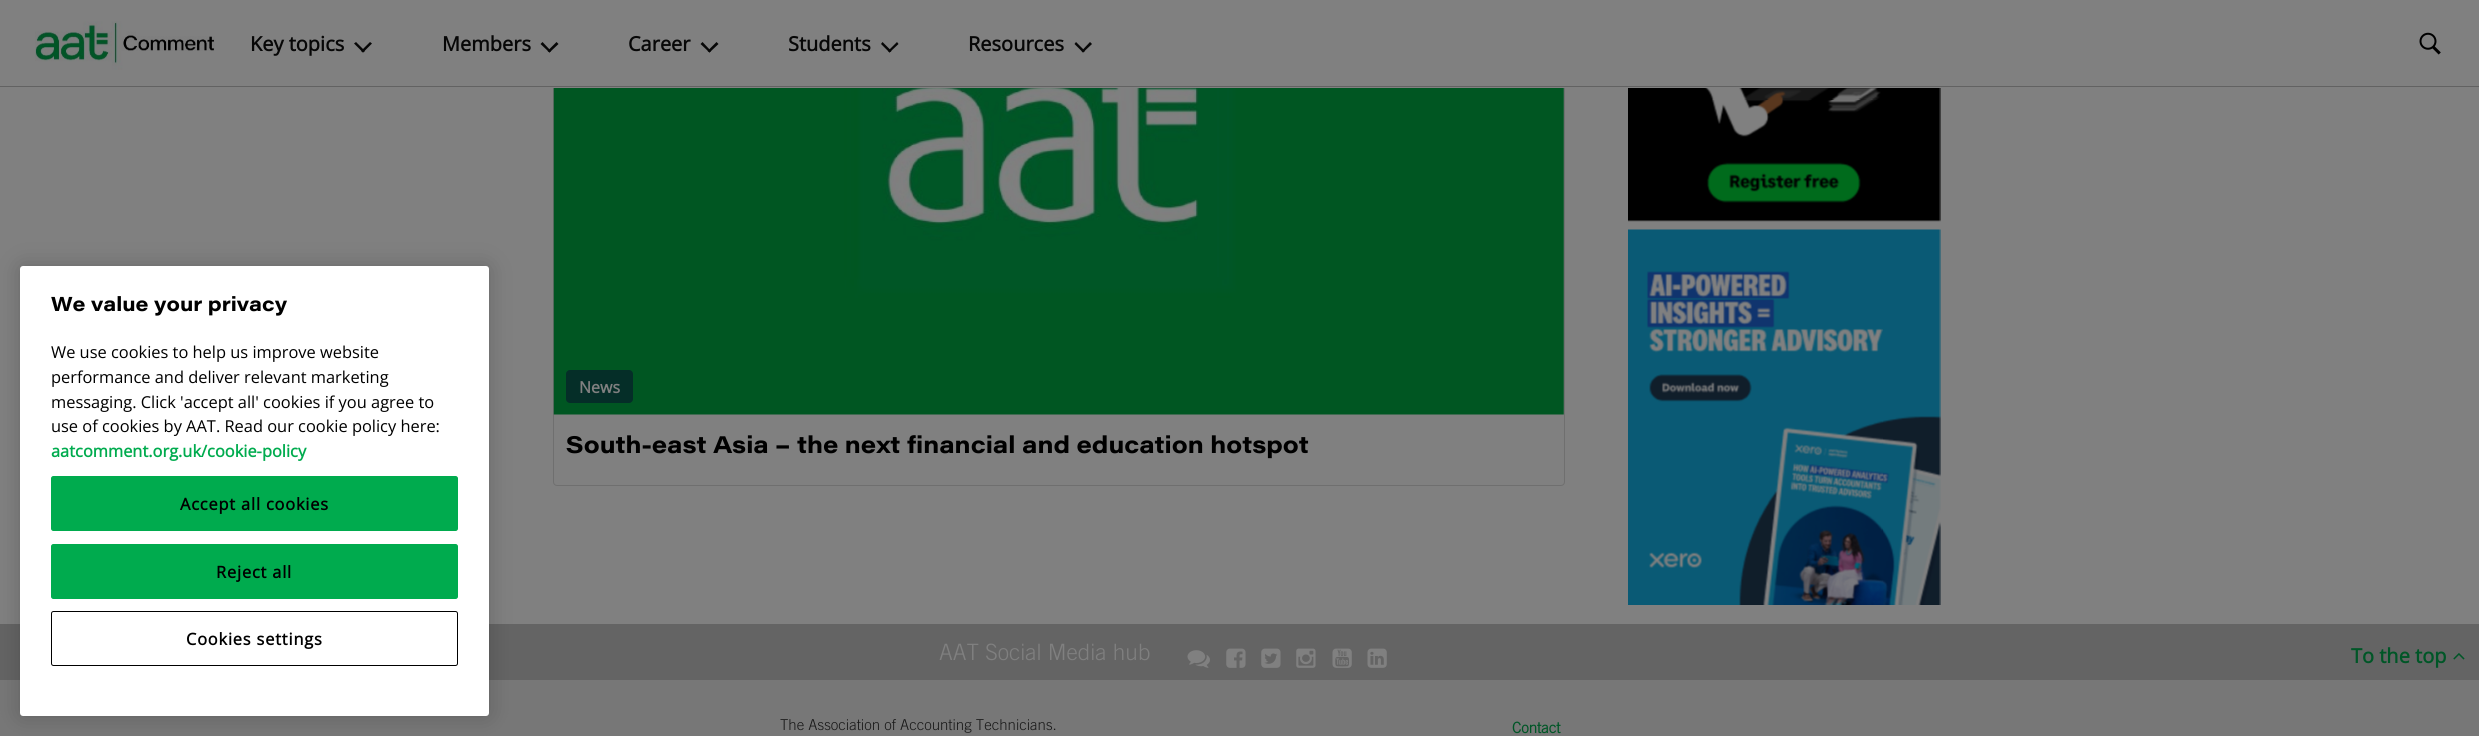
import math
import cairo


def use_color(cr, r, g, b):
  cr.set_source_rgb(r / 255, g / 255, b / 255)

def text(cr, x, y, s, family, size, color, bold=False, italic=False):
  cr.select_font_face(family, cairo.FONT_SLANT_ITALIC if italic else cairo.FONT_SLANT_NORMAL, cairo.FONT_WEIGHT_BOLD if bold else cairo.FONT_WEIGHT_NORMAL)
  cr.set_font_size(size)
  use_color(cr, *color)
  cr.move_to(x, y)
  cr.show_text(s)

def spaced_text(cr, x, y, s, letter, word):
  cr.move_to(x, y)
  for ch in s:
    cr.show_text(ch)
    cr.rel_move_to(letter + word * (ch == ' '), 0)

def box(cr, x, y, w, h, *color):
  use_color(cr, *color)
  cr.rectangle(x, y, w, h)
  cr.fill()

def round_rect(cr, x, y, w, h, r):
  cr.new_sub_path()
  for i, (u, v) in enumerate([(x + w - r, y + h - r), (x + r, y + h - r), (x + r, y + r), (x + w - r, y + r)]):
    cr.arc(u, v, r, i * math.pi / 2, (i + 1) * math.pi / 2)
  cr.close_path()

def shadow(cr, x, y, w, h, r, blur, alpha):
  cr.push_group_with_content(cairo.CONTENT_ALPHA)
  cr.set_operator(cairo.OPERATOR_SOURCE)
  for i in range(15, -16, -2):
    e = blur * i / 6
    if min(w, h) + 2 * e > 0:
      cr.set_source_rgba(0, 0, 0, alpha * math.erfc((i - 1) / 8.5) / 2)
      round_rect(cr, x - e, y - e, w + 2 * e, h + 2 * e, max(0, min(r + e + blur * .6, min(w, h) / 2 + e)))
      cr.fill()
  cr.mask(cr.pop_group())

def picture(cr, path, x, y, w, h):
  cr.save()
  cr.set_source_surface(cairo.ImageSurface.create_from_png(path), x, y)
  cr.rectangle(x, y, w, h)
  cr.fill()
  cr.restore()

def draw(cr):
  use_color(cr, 128, 128, 128)
  cr.paint()
  box(cr, 0, 680, 2479, 56, 119, 119, 119)
  box(cr, 0, 624, 2479, 56, 100, 100, 100)
  use_color(cr, 0, 0, 0)
  shadow(cr, 20, 266, 469, 450, 3, 11, 0.2)
  use_color(cr, 255, 255, 255)
  round_rect(cr, 20, 266, 469, 450, 3)
  cr.fill()
  use_color(cr, 0, 171, 78)
  round_rect(cr, 51.5, 476.5, 406, 54, 2)
  cr.fill_preserve()
  cr.set_line_width(1)
  cr.stroke()
  round_rect(cr, 51.5, 544.5, 406, 54, 2)
  cr.fill_preserve()
  cr.stroke()
  round_rect(cr, 51.5, 611.5, 406, 54, 2)
  use_color(cr, 0, 0, 0)
  cr.stroke()
  round_rect(cr, 553.5, -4.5, 1011, 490, 3.5)
  use_color(cr, 111, 111, 111)
  cr.stroke()
  box(cr, 553, 0, 1012, 88, 128, 128, 128)
  box(cr, 0, 86, 2479, 1, 98, 98, 98)
  picture(cr, "img_01.png", 35, 21, 180, 49)
  use_color(cr, 7, 7, 7)
  cr.new_path()
  cr.move_to(361, 51)
  cr.line_to(370, 42)
  cr.line_to(372, 43.5)
  cr.line_to(363, 52.5)
  cr.close_path()
  cr.fill()
  cr.new_path()
  cr.move_to(354, 43.5)
  cr.line_to(356, 42)
  cr.line_to(365, 51)
  cr.line_to(363, 52.5)
  cr.close_path()
  cr.fill()
  cr.new_path()
  cr.move_to(547.5, 51)
  cr.line_to(556.5, 42)
  cr.line_to(558.5, 44)
  cr.line_to(549.5, 52.5)
  cr.close_path()
  cr.fill()
  cr.new_path()
  cr.move_to(540.5, 44)
  cr.line_to(542.5, 42)
  cr.line_to(551, 51)
  cr.line_to(549.5, 52.5)
  cr.close_path()
  cr.fill()
  cr.new_path()
  cr.move_to(707.5, 51)
  cr.line_to(716.5, 42)
  cr.line_to(718.5, 44)
  cr.line_to(709.5, 52.5)
  cr.close_path()
  cr.fill()
  cr.new_path()
  cr.move_to(700.5, 44)
  cr.line_to(702.5, 42)
  cr.line_to(711, 51)
  cr.line_to(709.5, 52.5)
  cr.close_path()
  cr.fill()
  cr.new_path()
  cr.move_to(888, 51)
  cr.line_to(897, 42)
  cr.line_to(898.5, 44)
  cr.line_to(889.5, 52.5)
  cr.close_path()
  cr.fill()
  cr.new_path()
  cr.move_to(881, 44)
  cr.line_to(882.5, 42)
  cr.line_to(891.5, 51)
  cr.line_to(889.5, 52.5)
  cr.close_path()
  cr.fill()
  cr.new_path()
  cr.move_to(1081.5, 51)
  cr.line_to(1090, 42)
  cr.line_to(1092, 44)
  cr.line_to(1083, 52.5)
  cr.close_path()
  cr.fill()
  cr.new_path()
  cr.move_to(1074.5, 44)
  cr.line_to(1076, 42)
  cr.line_to(1085, 51)
  cr.line_to(1083, 52.5)
  cr.close_path()
  cr.fill()
  picture(cr, "img_02.png", 2419, 32, 22, 23)
  picture(cr, "img_03.png", 553, 88, 1011, 327)
  use_color(cr, 5, 46, 40)
  round_rect(cr, 566, 370, 67, 33, 4)
  cr.fill()
  picture(cr, "img_04.png", 1628, 88, 313, 134)
  picture(cr, "img_05.png", 1628, 229, 313, 376)
  picture(cr, "img_06.png", 1187, 650, 23, 18)
  picture(cr, "img_07.png", 1226, 648, 20, 20)
  picture(cr, "img_08.png", 1261, 648, 20, 20)
  picture(cr, "img_09.png", 1296, 648, 20, 20)
  picture(cr, "img_10.png", 1332, 648, 20, 20)
  picture(cr, "img_11.png", 1367, 648, 20, 20)
  picture(cr, "img_12.png", 2453, 653, 12, 7)
  text(cr, 51, 311, "We value your privacy", "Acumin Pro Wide", 20, (0, 0, 0), bold=True)
  text(cr, 51, 358, "We use cookies to help us improve website", "Open Sans", 16.4, (0, 0, 0))
  text(cr, 51, 383, "performance and deliver relevant marketing", "Open Sans", 16.4, (0, 0, 0))
  text(cr, 51, 408, "messaging. Click 'accept all' cookies if you agree to", "Open Sans", 16.4, (0, 0, 0))
  text(cr, 51, 432, "use of cookies by AAT. Read our cookie policy here:", "Open Sans", 16.4, (0, 0, 0))
  text(cr, 51, 457, "aatcomment.org.uk/cookie-policy", "Open Sans", 16.4, (0, 171, 78), bold=True)
  use_color(cr, 0, 0, 0)
  spaced_text(cr, 180, 510, "Accept all cookies", 0.8, 0)
  spaced_text(cr, 216, 578, "Reject all", 0.8, 0)
  spaced_text(cr, 186, 645, "Cookies settings", 0.8, 0)
  text(cr, 250, 51, "Key topics", "Open Sans", 20, (7, 7, 7), bold=True)
  text(cr, 442, 51, "Members", "Open Sans", 20, (7, 7, 7), bold=True)
  text(cr, 628, 51, "Career", "Open Sans", 20, (7, 7, 7), bold=True)
  text(cr, 788, 51, "Students", "Open Sans", 20, (7, 7, 7), bold=True)
  text(cr, 968, 51, "Resources", "Open Sans", 20, (7, 7, 7), bold=True)
  text(cr, 579, 393, "News", "Open Sans", 16, (128, 128, 128), bold=True)
  text(cr, 566, 453, "South-east Asia – the next financial and education hotspot", "Acumin Pro Wide", 23.75, (0, 0, 0), bold=True)
  text(cr, 939, 660, "AAT Social Media hub", "Trade Gothic Light", 22.5, (128, 128, 128))
  text(cr, 2351, 663, "To the top", "Open Sans", 20, (0, 86, 39), bold=True)
  text(cr, 780, 730, "The Association of Accounting Technicians.", "Trade Gothic Light", 15, (24, 24, 24))
  text(cr, 1512, 733, "Contact", "Trade Gothic", 15, (0, 86, 39), bold=True)


surface = cairo.ImageSurface(cairo.FORMAT_RGB24, 2479, 736)
cr = cairo.Context(surface)
options = cairo.FontOptions()
options.set_hint_metrics(cairo.HINT_METRICS_OFF)
options.set_hint_style(cairo.HINT_STYLE_NONE)
cr.set_font_options(options)
cr.set_miter_limit(4)
draw(cr)
surface.write_to_png("out.png")
